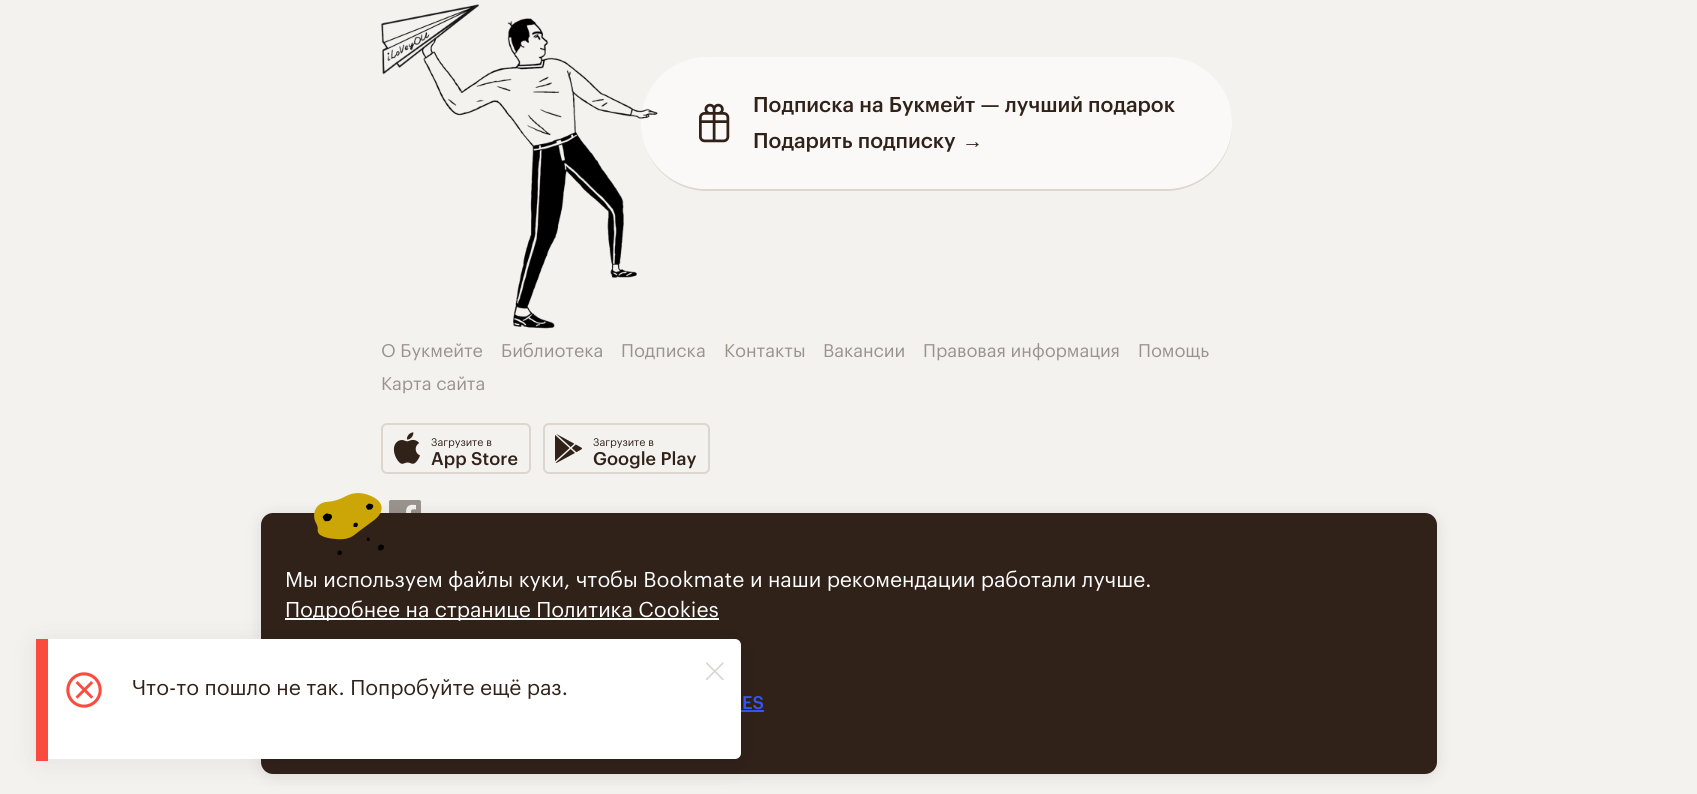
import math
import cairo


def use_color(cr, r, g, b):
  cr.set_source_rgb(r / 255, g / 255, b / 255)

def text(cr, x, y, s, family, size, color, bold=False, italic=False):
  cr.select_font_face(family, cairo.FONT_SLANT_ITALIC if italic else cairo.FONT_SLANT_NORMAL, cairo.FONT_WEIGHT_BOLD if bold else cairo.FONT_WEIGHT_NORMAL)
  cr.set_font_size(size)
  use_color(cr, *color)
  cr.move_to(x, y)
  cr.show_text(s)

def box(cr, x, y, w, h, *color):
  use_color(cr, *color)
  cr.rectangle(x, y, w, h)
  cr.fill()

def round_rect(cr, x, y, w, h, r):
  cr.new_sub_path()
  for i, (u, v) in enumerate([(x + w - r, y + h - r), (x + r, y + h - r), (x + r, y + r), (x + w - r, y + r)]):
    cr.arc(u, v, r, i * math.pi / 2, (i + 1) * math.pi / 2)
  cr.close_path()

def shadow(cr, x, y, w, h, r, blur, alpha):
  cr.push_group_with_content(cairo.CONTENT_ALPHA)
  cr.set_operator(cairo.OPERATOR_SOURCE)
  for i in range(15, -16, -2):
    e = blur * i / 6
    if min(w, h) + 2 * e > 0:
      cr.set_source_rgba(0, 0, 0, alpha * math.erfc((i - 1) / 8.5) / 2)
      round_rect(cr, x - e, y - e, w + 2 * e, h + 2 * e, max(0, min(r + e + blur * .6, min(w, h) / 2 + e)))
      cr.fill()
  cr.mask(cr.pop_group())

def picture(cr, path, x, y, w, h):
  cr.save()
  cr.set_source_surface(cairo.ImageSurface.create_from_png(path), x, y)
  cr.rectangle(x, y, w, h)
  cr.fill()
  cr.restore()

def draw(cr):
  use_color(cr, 244, 242, 239)
  cr.paint()
  use_color(cr, 221, 214, 207)
  cr.new_path()
  cr.move_to(643, 140)
  cr.curve_to(650, 169, 676, 191, 707, 191)
  cr.line_to(1166, 191)
  cr.curve_to(1202, 191, 1232, 161, 1232, 125)
  cr.curve_to(1232, 119, 1231, 113, 1230, 108)
  cr.curve_to(1231, 113, 1232, 118, 1232, 123)
  cr.curve_to(1232, 159, 1202, 189, 1166, 189)
  cr.line_to(706, 189)
  cr.curve_to(676, 189, 650, 168, 643, 140)
  cr.close_path()
  cr.fill()
  use_color(cr, 250, 249, 247)
  round_rect(cr, 641, 57, 591, 132, 66)
  cr.fill()
  picture(cr, "img_01.png", 381, 4, 277, 325)
  picture(cr, "img_02.png", 699, 103, 31, 40)
  round_rect(cr, 382, 424, 148, 49, 5)
  use_color(cr, 221, 214, 207)
  cr.stroke()
  picture(cr, "img_03.png", 393, 432, 27, 32)
  round_rect(cr, 544, 424, 165, 49, 5)
  cr.stroke()
  picture(cr, "img_04.png", 555, 434, 27, 29)
  picture(cr, "img_05.png", 389, 500, 32, 13)
  use_color(cr, 0, 0, 0)
  shadow(cr, 261, 515, 1176, 261, 12, 7.5, 0.1)
  use_color(cr, 48, 33, 25)
  round_rect(cr, 261, 513, 1176, 261, 12)
  cr.fill()
  picture(cr, "img_06.png", 314, 493, 70, 62)
  box(cr, 285, 618, 434, 2, 255, 255, 255)
  box(cr, 741, 710, 23, 2, 52, 86, 243)
  use_color(cr, 0, 0, 0)
  shadow(cr, 36, 642, 705, 120, 6, 15, 0.07)
  use_color(cr, 255, 255, 255)
  round_rect(cr, 36, 639, 705, 120, 6)
  cr.fill()
  box(cr, 36, 639, 12, 122, 250, 76, 62)
  picture(cr, "img_07.png", 706, 662, 18, 18)
  picture(cr, "img_08.png", 66, 672, 36, 36)
  text(cr, 753, 112, "Подписка на Букмейт — лучший подарок", "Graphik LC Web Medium", 21, (48, 33, 25))
  text(cr, 753, 148, "Подарить подписку", "Graphik LC Web Medium", 21, (48, 33, 25))
  text(cr, 962, 148, "→", "Liberation Sans", 21, (48, 33, 25), bold=True)
  text(cr, 381, 357, "О Букмейте", "Graphik LC Web", 18, (154, 147, 141))
  text(cr, 501, 357, "Библиотека", "Graphik LC Web", 18, (154, 147, 141))
  text(cr, 621, 357, "Подписка", "Graphik LC Web", 18, (154, 147, 141))
  text(cr, 724, 357, "Контакты", "Graphik LC Web", 18, (154, 147, 141))
  text(cr, 823, 357, "Вакансии", "Graphik LC Web", 18, (154, 147, 141))
  text(cr, 923, 357, "Правовая информация", "Graphik LC Web", 18, (154, 147, 141))
  text(cr, 1138, 357, "Помощь", "Graphik LC Web", 18, (154, 147, 141))
  text(cr, 381, 390, "Карта сайта", "Graphik LC Web", 18, (154, 147, 141))
  text(cr, 431, 446, "Загрузите в", "Graphik LC Web", 10.75, (48, 33, 25))
  text(cr, 431, 465, "App Store", "Graphik LC Web Medium", 18, (48, 33, 25))
  text(cr, 593, 446, "Загрузите в", "Graphik LC Web", 10.75, (48, 33, 25))
  text(cr, 593, 465, "Google Play", "Graphik LC Web Medium", 18, (48, 33, 25))
  text(cr, 285, 587, "Мы используем файлы куки, чтобы Bookmate и наши рекомендации работали лучше.", "Graphik LC Web", 21, (255, 255, 255))
  text(cr, 285, 617, "Подробнее на странице Политика Cookies", "Graphik LC Web", 21, (255, 255, 255))
  text(cr, 742, 709, "ES", "Graphik LC Web Medium", 18, (52, 86, 243))
  text(cr, 132, 695, "Что-то пошло не так. Попробуйте ещё раз.", "Graphik LC Web", 21, (48, 33, 25))


surface = cairo.ImageSurface(cairo.FORMAT_RGB24, 1697, 794)
cr = cairo.Context(surface)
options = cairo.FontOptions()
options.set_hint_metrics(cairo.HINT_METRICS_OFF)
options.set_hint_style(cairo.HINT_STYLE_NONE)
cr.set_font_options(options)
cr.set_miter_limit(4)
draw(cr)
surface.write_to_png("out.png")
